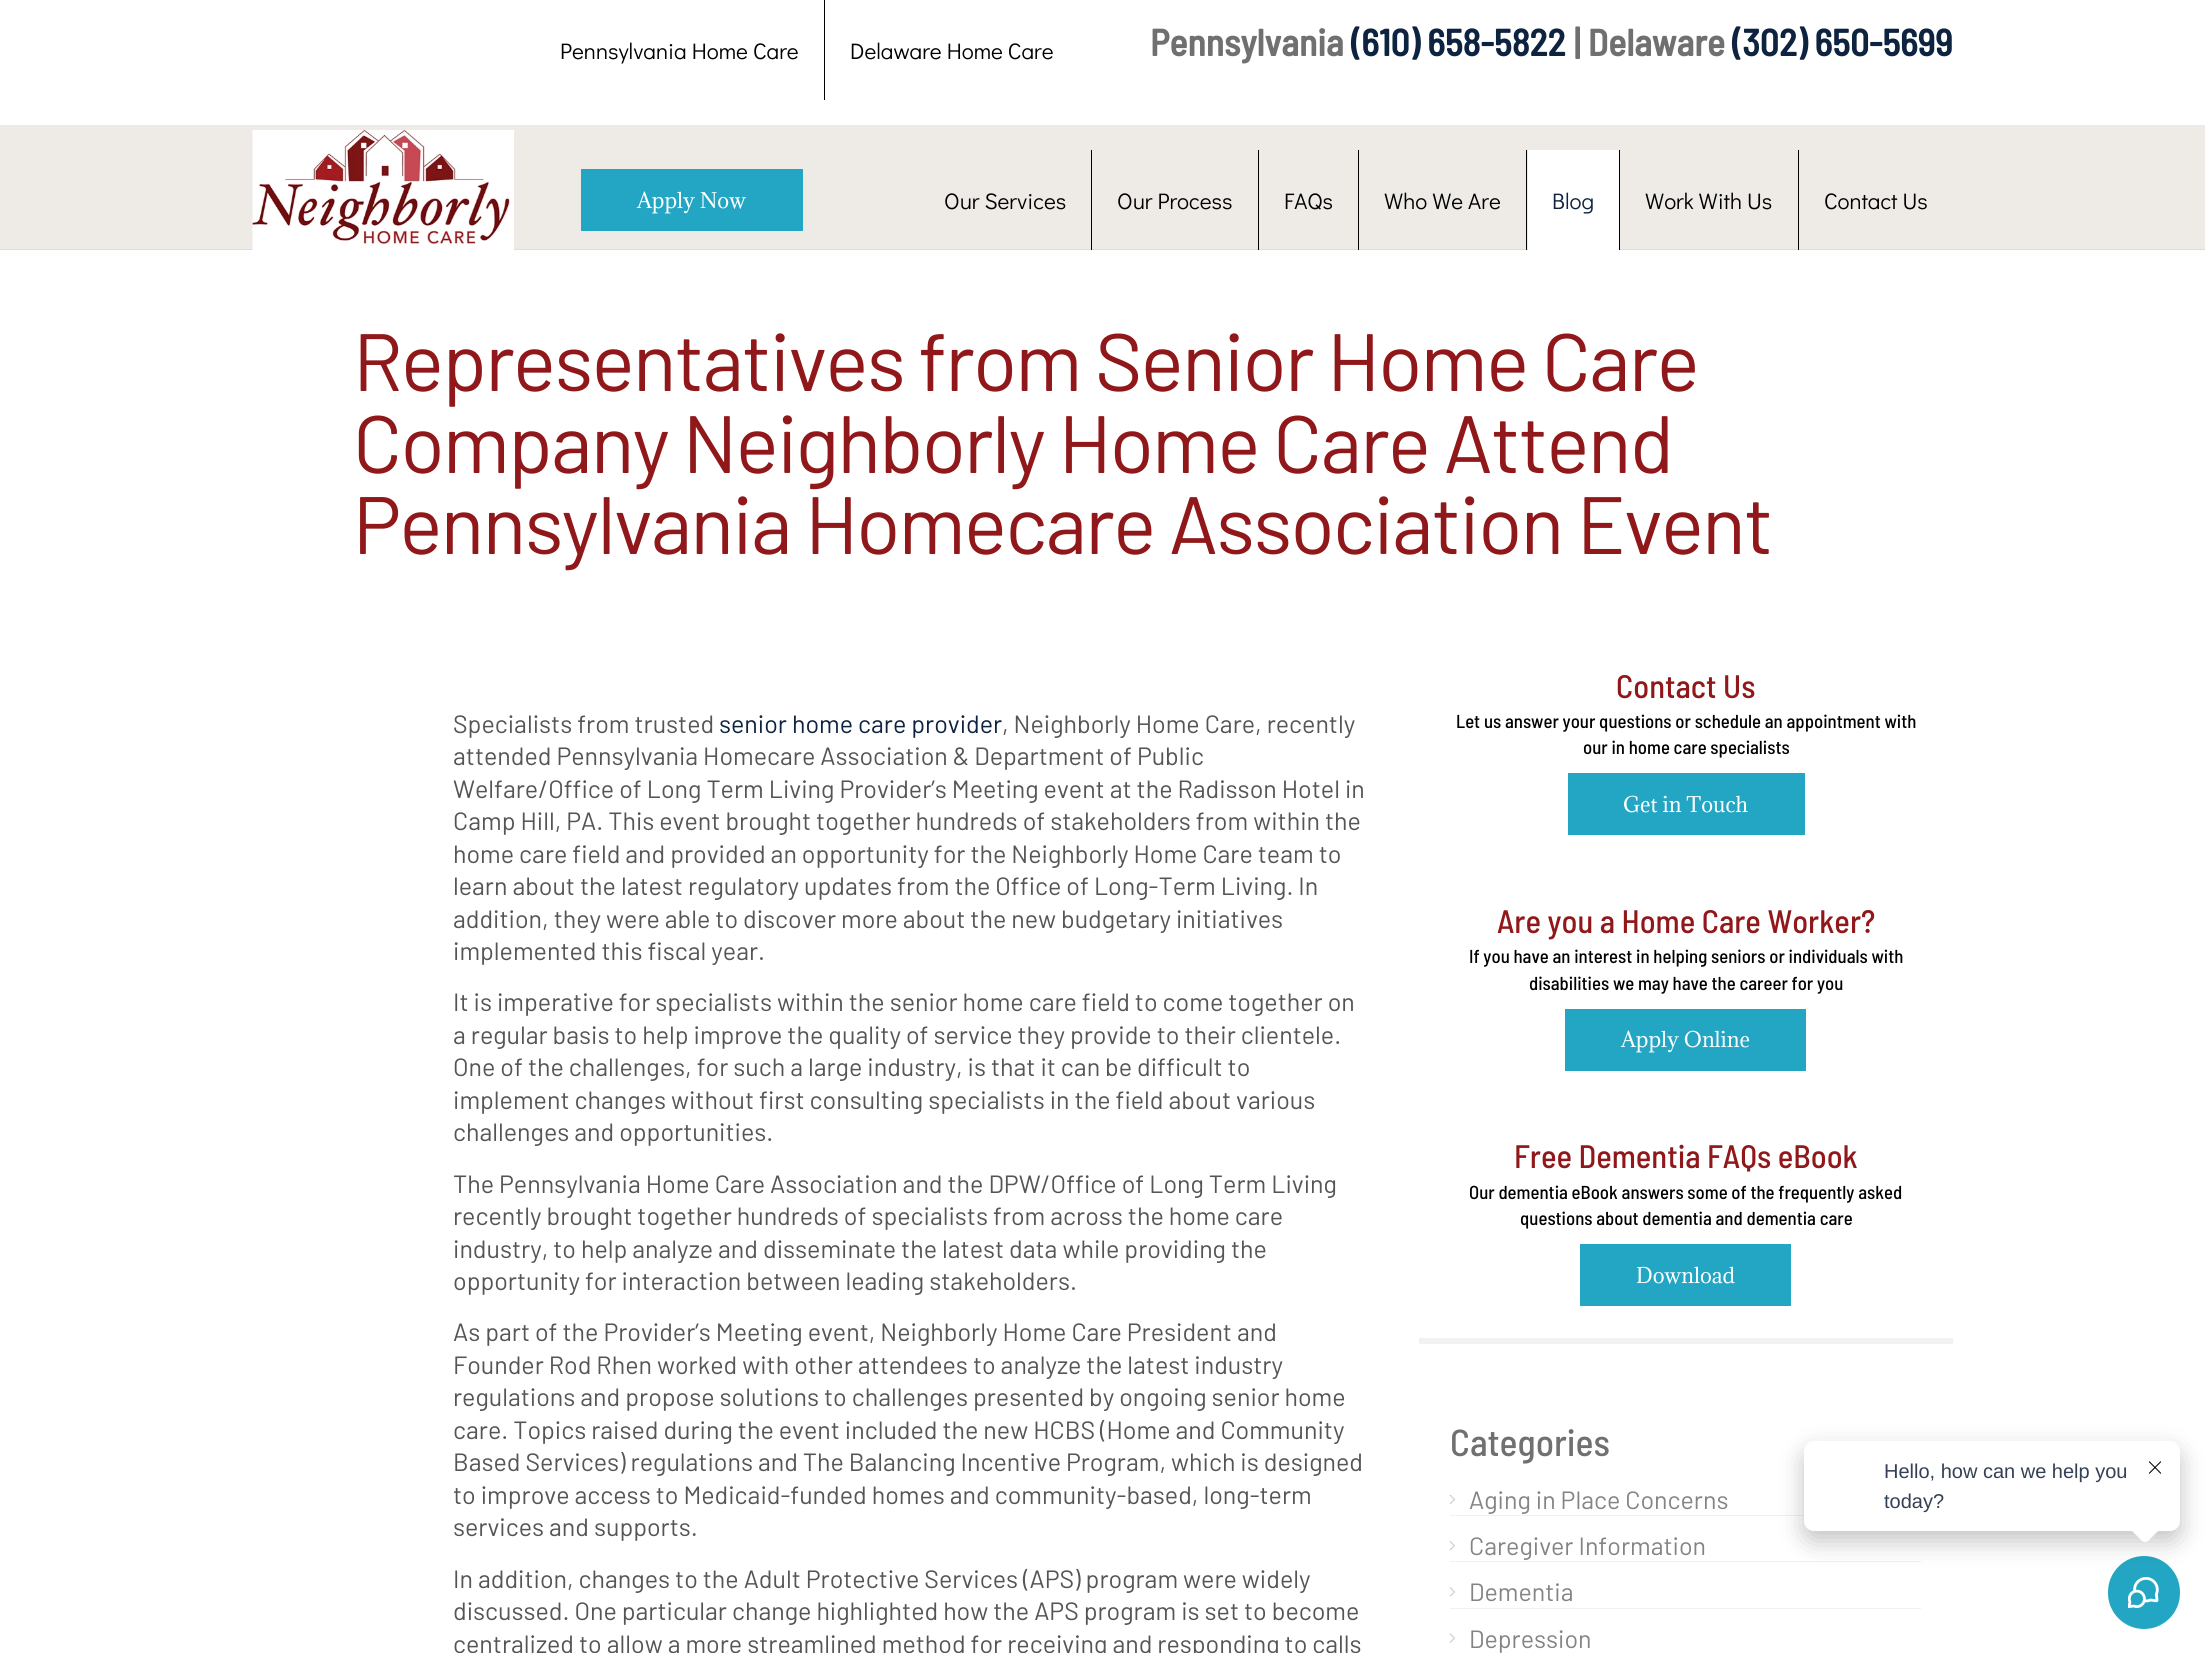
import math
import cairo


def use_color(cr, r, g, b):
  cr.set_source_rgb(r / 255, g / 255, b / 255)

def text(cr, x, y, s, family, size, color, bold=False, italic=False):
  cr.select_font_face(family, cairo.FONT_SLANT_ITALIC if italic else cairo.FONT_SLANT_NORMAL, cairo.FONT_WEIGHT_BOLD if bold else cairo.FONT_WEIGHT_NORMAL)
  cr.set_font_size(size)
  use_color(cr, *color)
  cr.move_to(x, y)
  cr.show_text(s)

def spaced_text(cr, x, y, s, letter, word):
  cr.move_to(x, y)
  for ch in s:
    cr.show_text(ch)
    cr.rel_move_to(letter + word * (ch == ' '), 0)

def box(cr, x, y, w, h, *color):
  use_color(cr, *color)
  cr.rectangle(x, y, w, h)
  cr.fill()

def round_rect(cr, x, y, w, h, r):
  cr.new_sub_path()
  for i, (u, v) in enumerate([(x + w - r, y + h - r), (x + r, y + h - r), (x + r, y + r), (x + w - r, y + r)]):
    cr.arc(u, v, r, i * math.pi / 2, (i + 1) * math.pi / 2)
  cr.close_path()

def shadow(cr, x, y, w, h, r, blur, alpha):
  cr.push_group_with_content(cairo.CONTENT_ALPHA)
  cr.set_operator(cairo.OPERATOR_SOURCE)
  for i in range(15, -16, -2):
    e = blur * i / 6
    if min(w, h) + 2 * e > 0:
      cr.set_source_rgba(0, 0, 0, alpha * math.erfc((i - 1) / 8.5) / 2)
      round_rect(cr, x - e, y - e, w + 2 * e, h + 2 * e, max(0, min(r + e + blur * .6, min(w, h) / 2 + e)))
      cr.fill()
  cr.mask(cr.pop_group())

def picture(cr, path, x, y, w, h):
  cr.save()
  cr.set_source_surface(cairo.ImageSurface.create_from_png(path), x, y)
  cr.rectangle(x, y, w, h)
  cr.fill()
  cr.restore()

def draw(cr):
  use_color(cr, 255, 255, 255)
  cr.paint()
  box(cr, 0, 125, 2205, 124, 238, 235, 231)
  box(cr, 0, 249, 2205, 1, 221, 221, 221)
  box(cr, 253, 130, 261, 120, 255, 255, 255)
  picture(cr, "img_01.png", 252, 129, 258, 121)
  box(cr, 824, 0, 1, 100, 0, 0, 0)
  box(cr, 581, 169, 222, 62, 35, 166, 196)
  box(cr, 1091, 150, 1, 100, 0, 0, 0)
  box(cr, 1258, 150, 1, 100, 0, 0, 0)
  box(cr, 1358, 150, 1, 100, 0, 0, 0)
  box(cr, 1526, 150, 1, 100, 0, 0, 0)
  box(cr, 1528, 150, 91, 100, 255, 255, 255)
  box(cr, 1619, 150, 1, 100, 0, 0, 0)
  box(cr, 1798, 150, 1, 100, 0, 0, 0)
  box(cr, 1568, 773, 237, 62, 35, 166, 196)
  box(cr, 1565, 1009, 241, 62, 35, 166, 196)
  use_color(cr, 242, 242, 242)
  cr.new_path()
  cr.move_to(1419, 1338)
  cr.line_to(1419, 1344)
  cr.line_to(1953, 1344)
  cr.line_to(1953, 1109)
  cr.line_to(1952, 1109)
  cr.line_to(1952, 1338)
  cr.close_path()
  cr.fill()
  box(cr, 1952, 1109, 1, 229, 255, 255, 255)
  box(cr, 1580, 1244, 211, 62, 35, 166, 196)
  picture(cr, "img_02.png", 1450, 1495, 5, 9)
  box(cr, 1450, 1515, 354, 1, 240, 240, 240)
  picture(cr, "img_03.png", 1450, 1541, 5, 9)
  box(cr, 1450, 1561, 471, 1, 240, 240, 240)
  picture(cr, "img_04.png", 1450, 1587, 5, 10)
  box(cr, 1450, 1608, 471, 1, 240, 240, 240)
  picture(cr, "img_05.png", 1450, 1633, 5, 10)
  use_color(cr, 35, 166, 196)
  round_rect(cr, 2108, 1556, 72, 73, 36)
  cr.fill()
  picture(cr, "img_07.png", 2128, 1577, 31, 31)
  use_color(cr, 0, 0, 0)
  shadow(cr, 1804, 1451, 376, 90, 10, 12.5, 0.24)
  use_color(cr, 255, 255, 255)
  round_rect(cr, 1804, 1441, 376, 90, 10)
  cr.fill()
  cr.new_path()
  cr.move_to(2148.5, 1512)
  cr.line_to(2159, 1522.5)
  cr.curve_to(2161, 1524.5, 2161, 1528, 2159, 1530)
  cr.line_to(2148.5, 1540.5)
  cr.curve_to(2146.5, 1542.5, 2143.5, 1542.5, 2141.5, 1540.5)
  cr.line_to(2131, 1530)
  cr.curve_to(2129, 1528, 2129, 1524.5, 2131, 1522.5)
  cr.line_to(2141.5, 1512)
  cr.curve_to(2143.5, 1510, 2146.5, 1510, 2148.5, 1512)
  cr.close_path()
  cr.fill()
  picture(cr, "img_06.png", 2149, 1461, 12, 13)
  text(cr, 560, 59, "Pennsylvania Home Care", "Didact Gothic", 22.5, (0, 0, 0))
  text(cr, 850, 59, "Delaware Home Care", "Didact Gothic", 22.5, (0, 0, 0))
  text(cr, 1150, 56, "Pennsylvania", "Barlow Semi Condensed", 37.5, (112, 112, 112), bold=True)
  text(cr, 1351, 56, "(610) 658-5822", "Barlow Semi Condensed", 37.5, (14, 35, 63), bold=True)
  text(cr, 1574, 56, "| Delaware", "Barlow Semi Condensed", 37.5, (112, 112, 112), bold=True)
  text(cr, 1732, 56, "(302) 650-5699", "Barlow Semi Condensed", 37.5, (14, 35, 63), bold=True)
  text(cr, 637, 208, "Apply Now", "Adamina", 20, (255, 255, 255))
  text(cr, 944, 209, "Our Services", "Didact Gothic", 22.5, (0, 0, 0))
  text(cr, 1117, 209, "Our Process", "Didact Gothic", 22.5, (0, 0, 0))
  text(cr, 1284, 209, "FAQs", "Didact Gothic", 22.5, (0, 0, 0))
  text(cr, 1384, 209, "Who We Are", "Didact Gothic", 22.5, (0, 0, 0))
  text(cr, 1552, 209, "Blog", "Didact Gothic", 22.5, (14, 35, 63))
  text(cr, 1645, 209, "Work With Us", "Didact Gothic", 22.5, (0, 0, 0))
  text(cr, 1824, 209, "Contact Us", "Didact Gothic", 22.5, (0, 0, 0))
  cr.select_font_face("Barlow")
  cr.set_font_size(81.25)
  use_color(cr, 144, 24, 26)
  spaced_text(cr, 353, 391, "Representatives from Senior Home Care", -1.9, 0)
  spaced_text(cr, 353, 473, "Company Neighborly Home Care Attend", -1.9, 0)
  spaced_text(cr, 353, 554, "Pennsylvania Homecare Association Event", -1.9, 0)
  text(cr, 453, 733, "Specialists from trusted", "Barlow", 25, (85, 85, 85))
  text(cr, 719, 733, "senior home care provider", "Barlow", 25, (14, 35, 63))
  text(cr, 1002, 733, ", Neighborly Home Care, recently", "Barlow", 25, (85, 85, 85))
  text(cr, 453, 765, "attended Pennsylvania Homecare Association & Department of Public", "Barlow", 25, (85, 85, 85))
  text(cr, 453, 798, "Welfare/Office of Long Term Living Provider’s Meeting event at the Radisson Hotel in", "Barlow", 25, (85, 85, 85))
  text(cr, 453, 830, "Camp Hill, PA. This event brought together hundreds of stakeholders from within the", "Barlow", 25, (85, 85, 85))
  text(cr, 453, 863, "home care field and provided an opportunity for the Neighborly Home Care team to", "Barlow", 25, (85, 85, 85))
  text(cr, 453, 895, "learn about the latest regulatory updates from the Office of Long-Term Living. In", "Barlow", 25, (85, 85, 85))
  text(cr, 453, 928, "addition, they were able to discover more about the new budgetary initiatives", "Barlow", 25, (85, 85, 85))
  text(cr, 453, 960, "implemented this fiscal year.", "Barlow", 25, (85, 85, 85))
  text(cr, 453, 1011, "It is imperative for specialists within the senior home care field to come together on", "Barlow", 25, (85, 85, 85))
  text(cr, 453, 1044, "a regular basis to help improve the quality of service they provide to their clientele.", "Barlow", 25, (85, 85, 85))
  text(cr, 453, 1076, "One of the challenges, for such a large industry, is that it can be difficult to", "Barlow", 25, (85, 85, 85))
  text(cr, 453, 1109, "implement changes without first consulting specialists in the field about various", "Barlow", 25, (85, 85, 85))
  text(cr, 453, 1141, "challenges and opportunities.", "Barlow", 25, (85, 85, 85))
  text(cr, 453, 1193, "The Pennsylvania Home Care Association and the DPW/Office of Long Term Living", "Barlow", 25, (85, 85, 85))
  text(cr, 453, 1225, "recently brought together hundreds of specialists from across the home care", "Barlow", 25, (85, 85, 85))
  text(cr, 453, 1258, "industry, to help analyze and disseminate the latest data while providing the", "Barlow", 25, (85, 85, 85))
  text(cr, 453, 1290, "opportunity for interaction between leading stakeholders.", "Barlow", 25, (85, 85, 85))
  text(cr, 453, 1341, "As part of the Provider’s Meeting event, Neighborly Home Care President and", "Barlow", 25, (85, 85, 85))
  text(cr, 453, 1374, "Founder Rod Rhen worked with other attendees to analyze the latest industry", "Barlow", 25, (85, 85, 85))
  text(cr, 453, 1406, "regulations and propose solutions to challenges presented by ongoing senior home", "Barlow", 25, (85, 85, 85))
  text(cr, 453, 1439, "care. Topics raised during the event included the new HCBS (Home and Community", "Barlow", 25, (85, 85, 85))
  text(cr, 453, 1471, "Based Services) regulations and The Balancing Incentive Program, which is designed", "Barlow", 25, (85, 85, 85))
  text(cr, 453, 1504, "to improve access to Medicaid-funded homes and community-based, long-term", "Barlow", 25, (85, 85, 85))
  text(cr, 453, 1536, "services and supports.", "Barlow", 25, (85, 85, 85))
  text(cr, 453, 1588, "In addition, changes to the Adult Protective Services (APS) program were widely", "Barlow", 25, (85, 85, 85))
  text(cr, 453, 1620, "discussed. One particular change highlighted how the APS program is set to become", "Barlow", 25, (85, 85, 85))
  text(cr, 453, 1653, "centralized to allow a more streamlined method for receiving and responding to calls", "Barlow", 25, (85, 85, 85))
  text(cr, 1616, 698, "Contact Us", "Barlow Semi Condensed Medium", 32.5, (144, 24, 26))
  text(cr, 1456, 728, "Let us answer your questions or schedule an appointment with", "Barlow Semi Condensed Medium", 18.75, (0, 0, 0))
  text(cr, 1583, 754, "our in home care specialists", "Barlow Semi Condensed Medium", 18.75, (0, 0, 0))
  text(cr, 1623, 812, "Get in Touch", "Adamina", 20, (255, 255, 255))
  text(cr, 1497, 933, "Are you a Home Care Worker?", "Barlow Semi Condensed Medium", 32.5, (144, 24, 26))
  text(cr, 1469, 963, "If you have an interest in helping seniors or individuals with", "Barlow Semi Condensed Medium", 18.75, (0, 0, 0))
  text(cr, 1529, 990, "disabilities we may have the career for you", "Barlow Semi Condensed Medium", 18.75, (0, 0, 0))
  text(cr, 1621, 1047, "Apply Online", "Adamina", 20, (255, 255, 255))
  text(cr, 1514, 1168, "Free Dementia FAQs eBook", "Barlow Semi Condensed Medium", 32.5, (144, 24, 26))
  text(cr, 1469, 1199, "Our dementia eBook answers some of the frequently asked", "Barlow Semi Condensed Medium", 18.75, (0, 0, 0))
  text(cr, 1520, 1225, "questions about dementia and dementia care", "Barlow Semi Condensed Medium", 18.75, (0, 0, 0))
  text(cr, 1636, 1283, "Download", "Adamina", 20, (255, 255, 255))
  text(cr, 1450, 1456, "Categories", "Barlow Semi Condensed Medium", 37.5, (112, 112, 112))
  text(cr, 1469, 1509, "Aging in Place Concerns", "Barlow", 25, (132, 132, 132))
  text(cr, 1469, 1555, "Caregiver Information", "Barlow", 25, (132, 132, 132))
  text(cr, 1469, 1601, "Dementia", "Barlow", 25, (132, 132, 132))
  text(cr, 1469, 1648, "Depression", "Barlow", 25, (132, 132, 132))
  text(cr, 1884, 1478, "Hello, how can we help you", "Liberation Sans", 20, (52, 64, 84))
  text(cr, 1884, 1508, "today?", "Liberation Sans", 20, (52, 64, 84))


surface = cairo.ImageSurface(cairo.FORMAT_RGB24, 2205, 1653)
cr = cairo.Context(surface)
options = cairo.FontOptions()
options.set_hint_metrics(cairo.HINT_METRICS_OFF)
options.set_hint_style(cairo.HINT_STYLE_NONE)
cr.set_font_options(options)
cr.set_miter_limit(4)
draw(cr)
surface.write_to_png("out.png")
